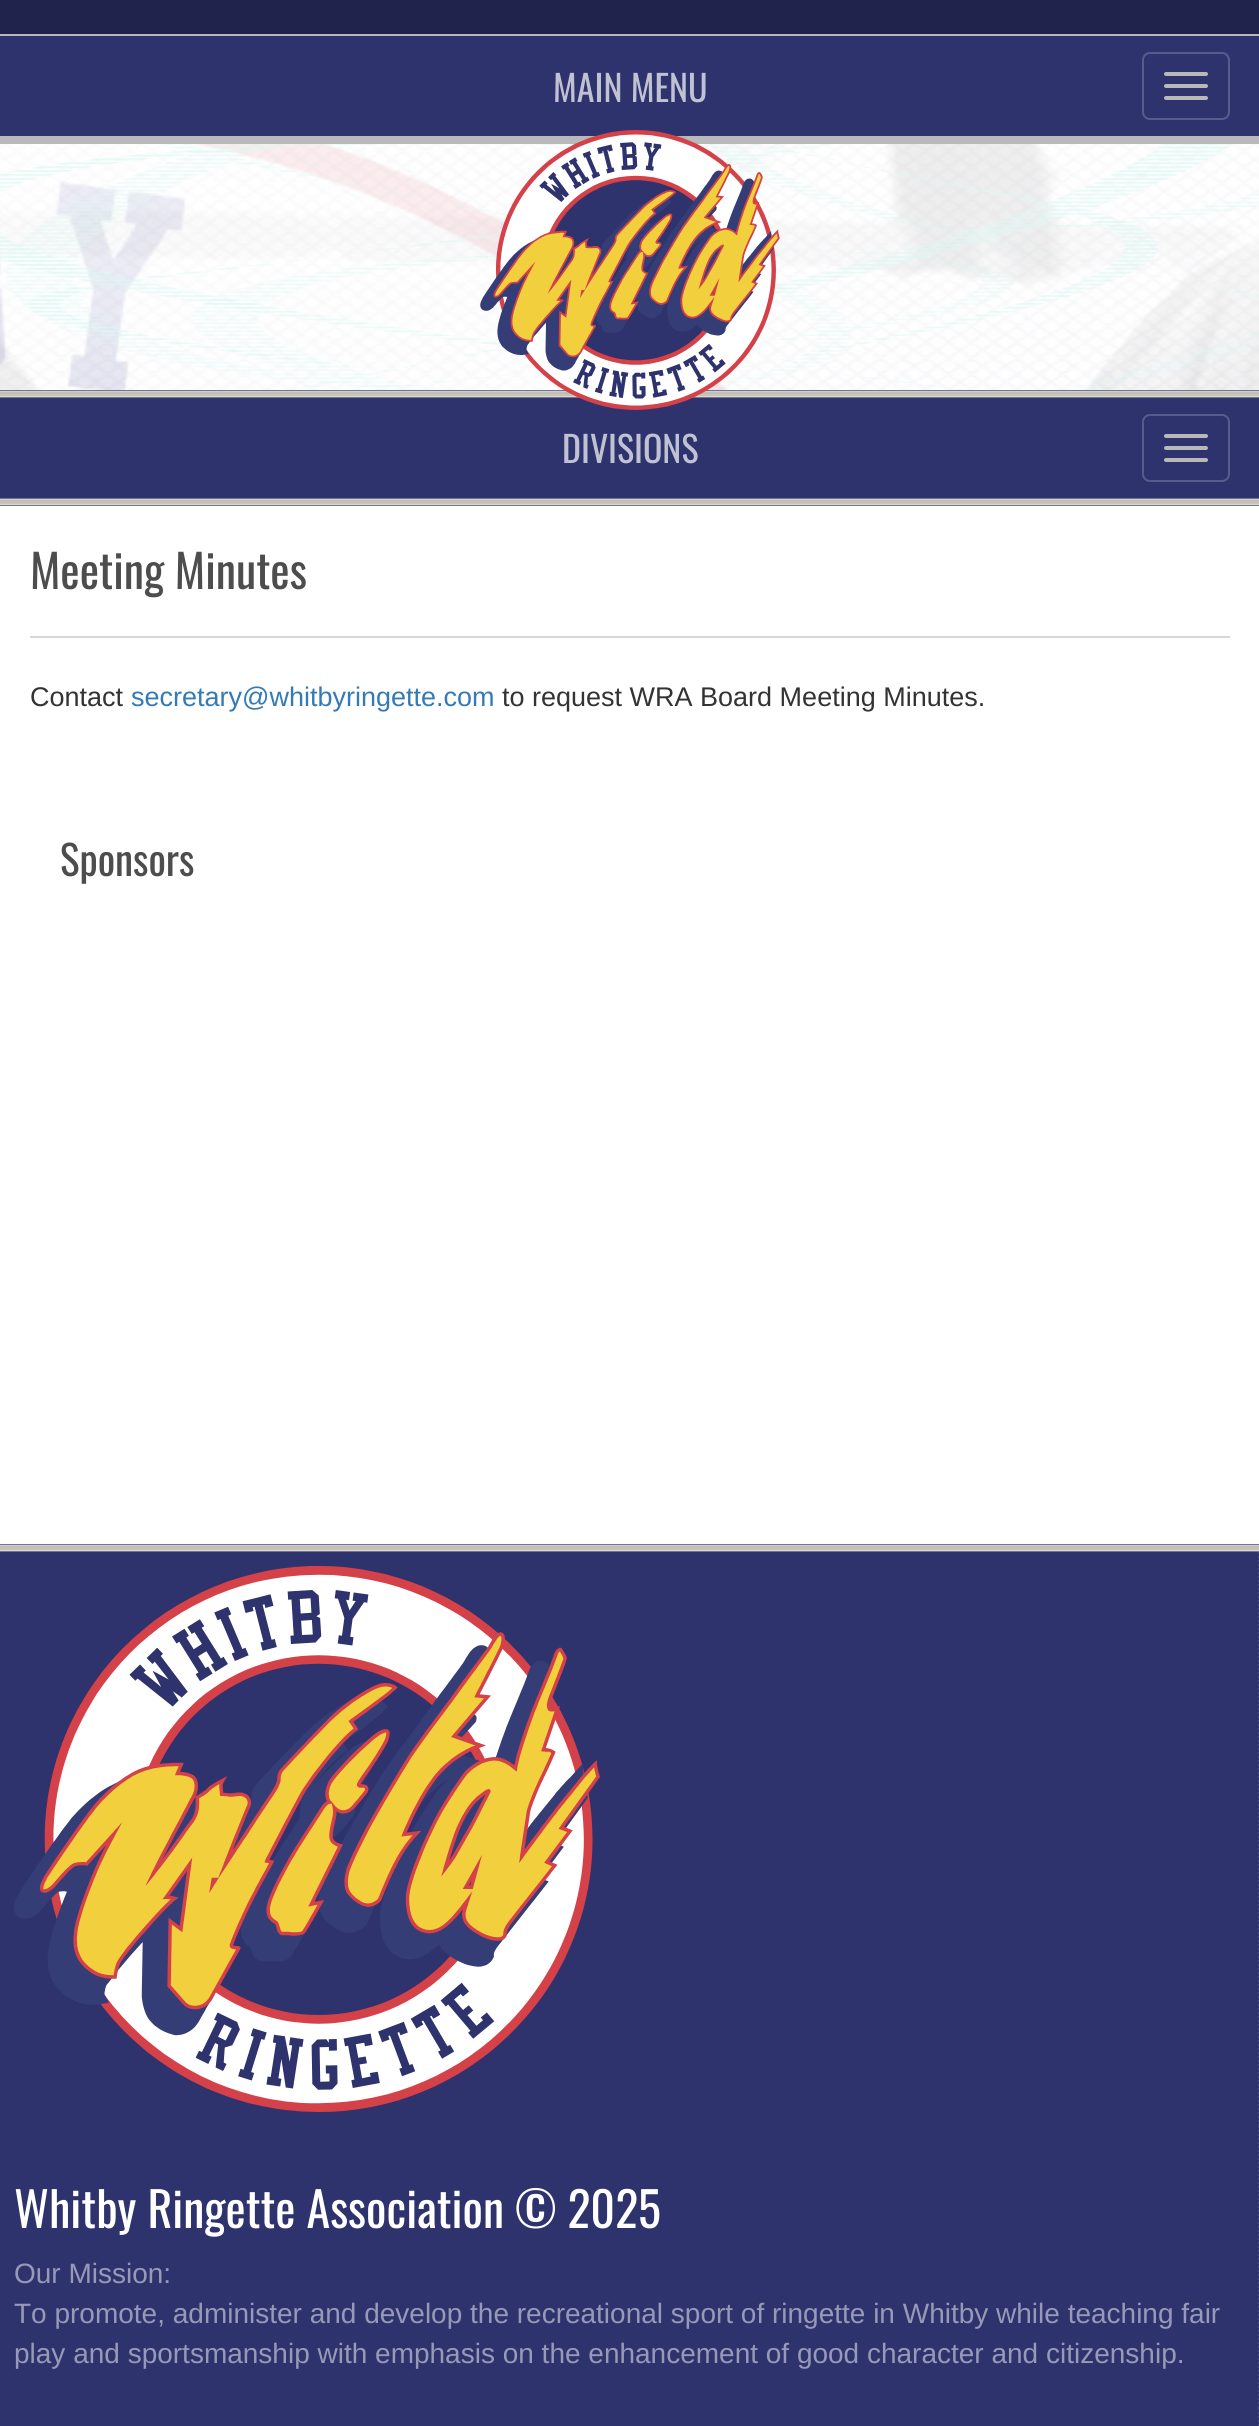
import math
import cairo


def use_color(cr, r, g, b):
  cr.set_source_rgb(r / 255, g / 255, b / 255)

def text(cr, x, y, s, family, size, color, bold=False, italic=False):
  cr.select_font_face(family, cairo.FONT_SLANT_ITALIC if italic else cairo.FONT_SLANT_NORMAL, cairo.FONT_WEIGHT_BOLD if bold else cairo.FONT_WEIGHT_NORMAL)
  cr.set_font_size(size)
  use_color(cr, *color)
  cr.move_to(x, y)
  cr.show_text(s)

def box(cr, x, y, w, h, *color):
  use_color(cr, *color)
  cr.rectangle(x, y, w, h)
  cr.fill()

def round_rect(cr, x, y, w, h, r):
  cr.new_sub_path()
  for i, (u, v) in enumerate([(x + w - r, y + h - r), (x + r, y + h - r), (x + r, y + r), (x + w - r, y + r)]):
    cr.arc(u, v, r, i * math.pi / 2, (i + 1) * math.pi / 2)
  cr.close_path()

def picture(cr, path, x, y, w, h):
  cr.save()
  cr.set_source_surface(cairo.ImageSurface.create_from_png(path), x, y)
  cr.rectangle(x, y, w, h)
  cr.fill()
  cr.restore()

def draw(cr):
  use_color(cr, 255, 255, 255)
  cr.paint()
  box(cr, 0, 34, 1259, 2, 185, 185, 185)
  box(cr, 0, 0, 1259, 34, 32, 36, 76)
  box(cr, 0, 36, 1259, 100, 46, 51, 109)
  box(cr, 0, 136, 1259, 8, 185, 185, 185)
  round_rect(cr, 1143, 53, 86, 66, 7)
  use_color(cr, 88, 92, 138)
  cr.stroke()
  use_color(cr, 185, 185, 185)
  round_rect(cr, 1164, 72, 44, 4, 2)
  cr.fill()
  round_rect(cr, 1164, 84, 44, 4, 2)
  cr.fill()
  round_rect(cr, 1164, 96, 44, 4, 2)
  cr.fill()
  picture(cr, "img_02.png", 0, 144, 1259, 246)
  picture(cr, "img_03.png", 0, 144, 1259, 246)
  box(cr, 0, 390, 1259, 8, 185, 185, 185)
  picture(cr, "img_04.png", 0, 390, 1259, 8)
  box(cr, 0, 398, 1259, 100, 46, 51, 109)
  picture(cr, "img_01.png", 480, 130, 300, 280)
  round_rect(cr, 1143, 415, 86, 66, 7)
  use_color(cr, 88, 92, 138)
  cr.stroke()
  use_color(cr, 185, 185, 185)
  round_rect(cr, 1164, 434, 44, 4, 2)
  cr.fill()
  round_rect(cr, 1164, 446, 44, 4, 2)
  cr.fill()
  round_rect(cr, 1164, 458, 44, 4, 2)
  cr.fill()
  box(cr, 0, 498, 1259, 8, 185, 185, 185)
  picture(cr, "img_05.png", 0, 498, 1259, 8)
  box(cr, 30, 636, 1200, 2, 213, 214, 226)
  box(cr, 0, 1544, 1259, 8, 185, 185, 185)
  picture(cr, "img_04.png", 0, 1544, 1259, 8)
  box(cr, 0, 1552, 1259, 874, 46, 51, 109)
  cr.new_path()
  cr.move_to(1259, 1552)
  cr.line_to(1259, 2126)
  use_color(cr, 67, 71, 124)
  cr.set_dash([2, 2])
  cr.stroke()
  picture(cr, "img_06.png", 14, 1566, 586, 546)
  cr.new_path()
  cr.move_to(1259, 2126)
  cr.line_to(1259, 2408)
  cr.stroke()
  cr.new_path()
  cr.move_to(1259, 2408)
  cr.line_to(1259, 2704)
  cr.stroke()
  text(cr, 553, 102, "MAIN MENU", "Oswald", 36, (192, 194, 211))
  text(cr, 562, 463, "DIVISIONS", "Oswald", 36, (192, 194, 211))
  text(cr, 30, 589, "Meeting Minutes", "Oswald", 46, (77, 77, 77))
  text(cr, 30, 706, "Contact", "Liberation Sans", 27, (51, 51, 51))
  text(cr, 131, 706, "secretary@whitbyringette.com", "Liberation Sans", 27, (51, 122, 183))
  text(cr, 502, 706, "to request WRA Board Meeting Minutes.", "Liberation Sans", 27, (51, 51, 51))
  text(cr, 60, 876, "Sponsors", "Oswald", 41, (77, 77, 77))
  text(cr, 14, 2228, "Whitby Ringette Association © 2025", "Oswald", 48, (255, 255, 255))
  text(cr, 14, 2283, "Our Mission:", "Liberation Sans", 28, (151, 153, 182))
  text(cr, 14, 2323, "To promote, administer and develop the recreational sport of ringette in Whitby while teaching fair", "Liberation Sans", 28, (151, 153, 182))
  text(cr, 14, 2363, "play and sportsmanship with emphasis on the enhancement of good character and citizenship.", "Liberation Sans", 28, (151, 153, 182))


surface = cairo.ImageSurface(cairo.FORMAT_RGB24, 1259, 2426)
cr = cairo.Context(surface)
options = cairo.FontOptions()
options.set_hint_metrics(cairo.HINT_METRICS_OFF)
options.set_hint_style(cairo.HINT_STYLE_NONE)
cr.set_font_options(options)
cr.set_miter_limit(4)
draw(cr)
surface.write_to_png("out.png")
